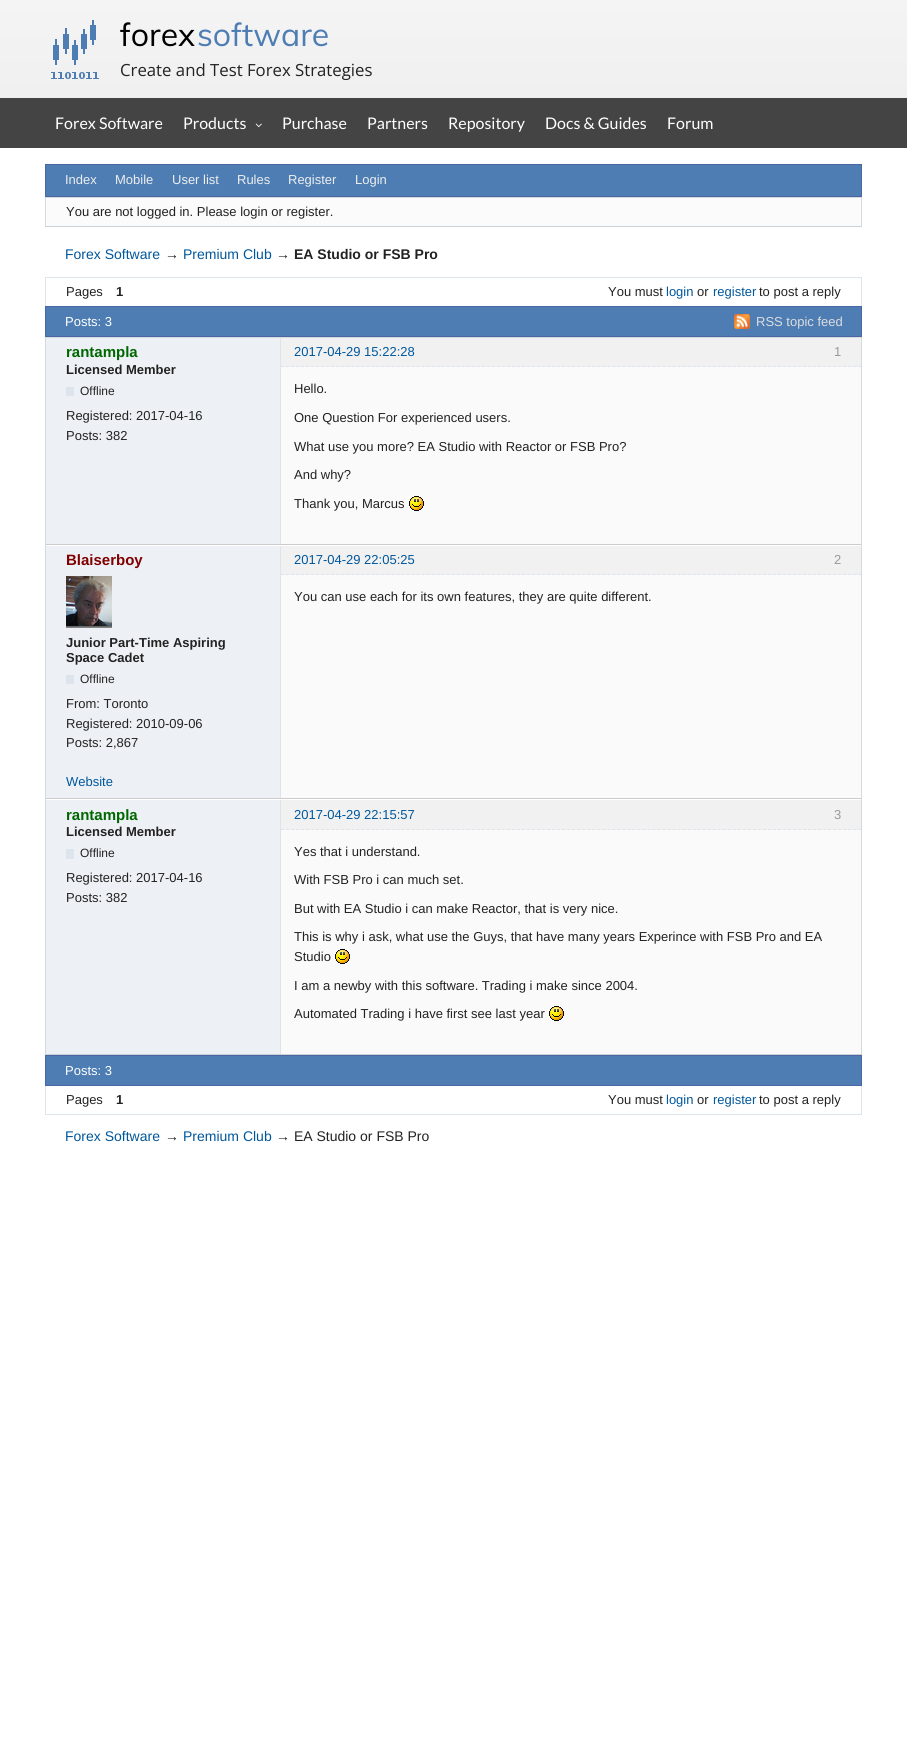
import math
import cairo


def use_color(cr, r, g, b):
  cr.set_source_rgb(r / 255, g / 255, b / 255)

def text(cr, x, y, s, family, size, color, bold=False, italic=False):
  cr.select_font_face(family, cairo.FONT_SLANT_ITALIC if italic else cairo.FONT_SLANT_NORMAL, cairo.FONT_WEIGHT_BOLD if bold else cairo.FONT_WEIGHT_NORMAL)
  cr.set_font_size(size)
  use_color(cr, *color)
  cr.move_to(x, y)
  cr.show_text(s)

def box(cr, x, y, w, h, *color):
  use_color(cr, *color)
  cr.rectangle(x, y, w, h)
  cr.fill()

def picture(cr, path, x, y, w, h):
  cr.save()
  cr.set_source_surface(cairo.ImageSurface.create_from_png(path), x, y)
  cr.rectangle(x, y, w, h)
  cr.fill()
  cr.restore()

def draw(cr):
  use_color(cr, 255, 255, 255)
  cr.paint()
  gradient = cairo.LinearGradient(454, 98, 454, 0)
  gradient.add_color_stop_rgba(0, 0.941, 0.941, 0.941, 1)
  gradient.add_color_stop_rgba(1, 0.957, 0.957, 0.957, 1)
  cr.set_source(gradient)
  cr.rectangle(0, 0, 907, 98)
  cr.fill()
  picture(cr, "img_01.png", 51, 20, 48, 59)
  box(cr, 0, 98, 907, 50, 68, 68, 68)
  picture(cr, "img_02.png", 255, 123, 7, 5)
  use_color(cr, 77, 125, 179)
  cr.rectangle(45.5, 164.5, 816, 32)
  cr.fill_preserve()
  use_color(cr, 76, 102, 164)
  cr.set_line_width(1)
  cr.stroke()
  box(cr, 46, 198, 815, 28, 251, 251, 251)
  box(cr, 45, 197, 817, 1, 211, 218, 225)
  box(cr, 861, 197, 1, 30, 211, 218, 225)
  box(cr, 45, 226, 817, 1, 203, 209, 216)
  box(cr, 45, 197, 1, 30, 211, 218, 225)
  box(cr, 45, 277, 817, 1, 221, 228, 235)
  box(cr, 861, 277, 1, 29, 221, 228, 235)
  box(cr, 45, 277, 1, 29, 221, 228, 235)
  use_color(cr, 77, 125, 179)
  cr.rectangle(45.5, 306.5, 816, 30)
  cr.fill_preserve()
  use_color(cr, 76, 102, 164)
  cr.stroke()
  picture(cr, "img_03.png", 734, 314, 16, 15)
  box(cr, 45, 337, 817, 1, 211, 218, 225)
  box(cr, 861, 337, 1, 718, 211, 218, 225)
  box(cr, 45, 1054, 817, 1, 203, 209, 216)
  box(cr, 45, 337, 1, 718, 211, 218, 225)
  box(cr, 46, 338, 234, 206, 237, 241, 245)
  box(cr, 46, 544, 815, 1, 204, 204, 204)
  box(cr, 281, 367, 580, 177, 250, 250, 250)
  box(cr, 280, 338, 1, 206, 221, 228, 235)
  box(cr, 281, 338, 580, 29, 241, 241, 241)
  cr.new_path()
  cr.move_to(281, 366.5)
  cr.line_to(861, 366.5)
  use_color(cr, 221, 228, 235)
  cr.set_dash([3, 2.02])
  cr.stroke()
  box(cr, 66, 387, 8, 9, 221, 228, 235)
  picture(cr, "img_04.png", 409, 496, 15, 15)
  box(cr, 46, 546, 234, 252, 237, 241, 245)
  box(cr, 46, 798, 815, 1, 204, 204, 204)
  box(cr, 281, 575, 580, 223, 250, 250, 250)
  box(cr, 280, 546, 1, 252, 221, 228, 235)
  box(cr, 281, 546, 580, 29, 241, 241, 241)
  cr.new_path()
  cr.move_to(281, 574.5)
  cr.line_to(861, 574.5)
  use_color(cr, 221, 228, 235)
  cr.stroke()
  picture(cr, "img_05.png", 66, 576, 46, 52)
  box(cr, 66, 675, 8, 9, 221, 228, 235)
  box(cr, 46, 800, 234, 254, 237, 241, 245)
  box(cr, 281, 830, 580, 224, 250, 250, 250)
  box(cr, 280, 800, 1, 254, 221, 228, 235)
  box(cr, 281, 800, 580, 30, 241, 241, 241)
  cr.new_path()
  cr.move_to(281, 829.5)
  cr.line_to(861, 829.5)
  use_color(cr, 221, 228, 235)
  cr.stroke()
  box(cr, 66, 849, 8, 10, 221, 228, 235)
  picture(cr, "img_04.png", 335, 949, 15, 15)
  picture(cr, "img_04.png", 549, 1006, 15, 15)
  use_color(cr, 77, 125, 179)
  cr.rectangle(45.5, 1055.5, 816, 30)
  cr.fill_preserve()
  use_color(cr, 76, 102, 164)
  cr.set_dash([])
  cr.stroke()
  box(cr, 861, 1086, 1, 29, 221, 228, 235)
  box(cr, 45, 1114, 817, 1, 221, 228, 235)
  box(cr, 45, 1086, 1, 29, 221, 228, 235)
  text(cr, 120, 46, "forex", "Muli", 32, (0, 0, 0))
  text(cr, 197, 46, "software", "Muli", 32, (77, 125, 179))
  text(cr, 120, 76, "Create and Test Forex Strategies", "Open Sans", 16.75, (34, 34, 34))
  text(cr, 55, 129, "Forex Software", "Lato", 16, (255, 255, 255))
  text(cr, 183, 129, "Products", "Lato", 16, (255, 255, 255))
  text(cr, 282, 129, "Purchase", "Lato", 16, (255, 255, 255))
  text(cr, 367, 129, "Partners", "Lato", 16, (255, 255, 255))
  text(cr, 448, 129, "Repository", "Lato", 16, (255, 255, 255))
  text(cr, 545, 129, "Docs & Guides", "Lato", 16, (255, 255, 255))
  text(cr, 667, 129, "Forum", "Lato", 16, (255, 255, 255))
  text(cr, 65, 184, "Index", "Liberation Sans", 13, (238, 238, 238))
  text(cr, 115, 184, "Mobile", "Liberation Sans", 13, (238, 238, 238))
  text(cr, 172, 184, "User list", "Liberation Sans", 13, (238, 238, 238))
  text(cr, 237, 184, "Rules", "Liberation Sans", 13, (238, 238, 238))
  text(cr, 288, 184, "Register", "Liberation Sans", 13, (238, 238, 238))
  text(cr, 355, 184, "Login", "Liberation Sans", 13, (238, 238, 238))
  text(cr, 66, 216, "You are not logged in. Please login or register.", "Liberation Sans", 13, (34, 34, 34))
  text(cr, 65, 259, "Forex Software", "Liberation Sans", 14, (0, 87, 156))
  text(cr, 165, 259, "→", "Liberation Sans", 14, (34, 34, 34))
  text(cr, 183, 259, "Premium Club", "Liberation Sans", 14, (0, 87, 156))
  text(cr, 276, 259, "→", "Liberation Sans", 14, (34, 34, 34))
  text(cr, 294, 259, "EA Studio or FSB Pro", "Liberation Sans", 14, (34, 34, 34), bold=True)
  text(cr, 66, 296, "Pages", "Liberation Sans", 13, (34, 34, 34))
  text(cr, 116, 296, "1", "Liberation Sans", 13, (34, 34, 34), bold=True)
  text(cr, 608, 296, "You must", "Liberation Sans", 13, (34, 34, 34))
  text(cr, 666, 296, "login", "Liberation Sans", 13, (0, 87, 156))
  text(cr, 697, 296, "or", "Liberation Sans", 13, (34, 34, 34))
  text(cr, 713, 296, "register", "Liberation Sans", 13, (0, 87, 156))
  text(cr, 759, 296, "to post a reply", "Liberation Sans", 13, (34, 34, 34))
  text(cr, 65, 326, "Posts: 3", "Liberation Sans", 13, (255, 255, 255))
  text(cr, 756, 326, "RSS topic feed", "Liberation Sans", 13, (221, 221, 221))
  text(cr, 66, 357, "rantampla", "Liberation Sans", 15, (0, 102, 0), bold=True)
  text(cr, 294, 356, "2017-04-29 15:22:28", "Liberation Sans", 13, (0, 87, 156))
  text(cr, 834, 356, "1", "Liberation Sans", 13, (153, 153, 153))
  text(cr, 66, 374, "Licensed Member", "Liberation Sans", 13, (34, 34, 34), bold=True)
  text(cr, 80, 395, "Offline", "Liberation Sans", 12, (34, 34, 34))
  text(cr, 66, 420, "Registered: 2017-04-16", "Liberation Sans", 13, (34, 34, 34))
  text(cr, 66, 440, "Posts: 382", "Liberation Sans", 13, (34, 34, 34))
  text(cr, 294, 393, "Hello.", "Liberation Sans", 13, (34, 34, 34))
  text(cr, 294, 422, "One Question For experienced users.", "Liberation Sans", 13, (34, 34, 34))
  text(cr, 294, 451, "What use you more? EA Studio with Reactor or FSB Pro?", "Liberation Sans", 13, (34, 34, 34))
  text(cr, 294, 479, "And why?", "Liberation Sans", 13, (34, 34, 34))
  text(cr, 294, 508, "Thank you, Marcus", "Liberation Sans", 13, (34, 34, 34))
  text(cr, 66, 565, "Blaiserboy", "Liberation Sans", 15, (128, 0, 0), bold=True)
  text(cr, 294, 564, "2017-04-29 22:05:25", "Liberation Sans", 13, (0, 87, 156))
  text(cr, 834, 564, "2", "Liberation Sans", 13, (153, 153, 153))
  text(cr, 294, 601, "You can use each for its own features, they are quite different.", "Liberation Sans", 13, (34, 34, 34))
  text(cr, 66, 647, "Junior Part-Time Aspiring", "Liberation Sans", 13, (34, 34, 34), bold=True)
  text(cr, 66, 662, "Space Cadet", "Liberation Sans", 13, (34, 34, 34), bold=True)
  text(cr, 80, 683, "Offline", "Liberation Sans", 12, (34, 34, 34))
  text(cr, 66, 708, "From: Toronto", "Liberation Sans", 13, (34, 34, 34))
  text(cr, 66, 728, "Registered: 2010-09-06", "Liberation Sans", 13, (34, 34, 34))
  text(cr, 66, 747, "Posts: 2,867", "Liberation Sans", 13, (34, 34, 34))
  text(cr, 66, 786, "Website", "Liberation Sans", 13, (0, 87, 156))
  text(cr, 66, 820, "rantampla", "Liberation Sans", 15, (0, 102, 0), bold=True)
  text(cr, 294, 819, "2017-04-29 22:15:57", "Liberation Sans", 13, (0, 87, 156))
  text(cr, 834, 819, "3", "Liberation Sans", 13, (153, 153, 153))
  text(cr, 66, 836, "Licensed Member", "Liberation Sans", 13, (34, 34, 34), bold=True)
  text(cr, 80, 857, "Offline", "Liberation Sans", 12, (34, 34, 34))
  text(cr, 66, 882, "Registered: 2017-04-16", "Liberation Sans", 13, (34, 34, 34))
  text(cr, 66, 902, "Posts: 382", "Liberation Sans", 13, (34, 34, 34))
  text(cr, 294, 856, "Yes that i understand.", "Liberation Sans", 13, (34, 34, 34))
  text(cr, 294, 884, "With FSB Pro i can much set.", "Liberation Sans", 13, (34, 34, 34))
  text(cr, 294, 913, "But with EA Studio i can make Reactor, that is very nice.", "Liberation Sans", 13, (34, 34, 34))
  text(cr, 294, 941, "This is why i ask, what use the Guys, that have many years Experince with FSB Pro and EA", "Liberation Sans", 13, (34, 34, 34))
  text(cr, 294, 961, "Studio", "Liberation Sans", 13, (34, 34, 34))
  text(cr, 294, 990, "I am a newby with this software. Trading i make since 2004.", "Liberation Sans", 13, (34, 34, 34))
  text(cr, 294, 1018, "Automated Trading i have first see last year", "Liberation Sans", 13, (34, 34, 34))
  text(cr, 65, 1075, "Posts: 3", "Liberation Sans", 13, (255, 255, 255))
  text(cr, 66, 1104, "Pages", "Liberation Sans", 13, (34, 34, 34))
  text(cr, 116, 1104, "1", "Liberation Sans", 13, (34, 34, 34), bold=True)
  text(cr, 608, 1104, "You must", "Liberation Sans", 13, (34, 34, 34))
  text(cr, 666, 1104, "login", "Liberation Sans", 13, (0, 87, 156))
  text(cr, 697, 1104, "or", "Liberation Sans", 13, (34, 34, 34))
  text(cr, 713, 1104, "register", "Liberation Sans", 13, (0, 87, 156))
  text(cr, 759, 1104, "to post a reply", "Liberation Sans", 13, (34, 34, 34))
  text(cr, 65, 1141, "Forex Software", "Liberation Sans", 14, (0, 87, 156))
  text(cr, 165, 1141, "→", "Liberation Sans", 14, (34, 34, 34))
  text(cr, 183, 1141, "Premium Club", "Liberation Sans", 14, (0, 87, 156))
  text(cr, 276, 1141, "→ EA Studio or FSB Pro", "Liberation Sans", 14, (34, 34, 34))


surface = cairo.ImageSurface(cairo.FORMAT_RGB24, 907, 1741)
cr = cairo.Context(surface)
options = cairo.FontOptions()
options.set_hint_metrics(cairo.HINT_METRICS_OFF)
options.set_hint_style(cairo.HINT_STYLE_NONE)
cr.set_font_options(options)
cr.set_miter_limit(4)
draw(cr)
surface.write_to_png("out.png")
